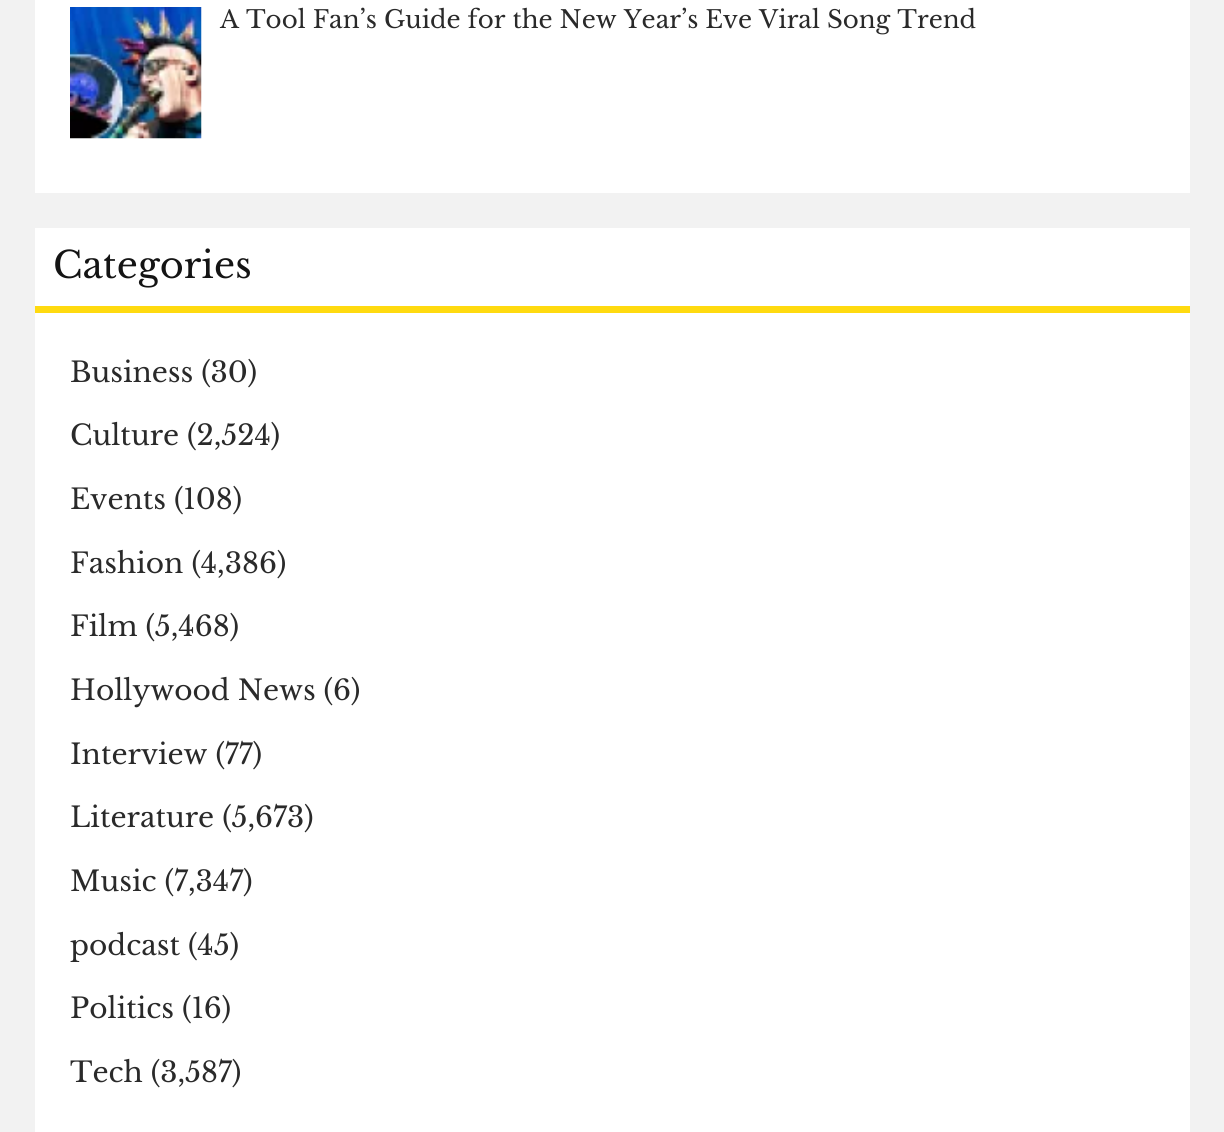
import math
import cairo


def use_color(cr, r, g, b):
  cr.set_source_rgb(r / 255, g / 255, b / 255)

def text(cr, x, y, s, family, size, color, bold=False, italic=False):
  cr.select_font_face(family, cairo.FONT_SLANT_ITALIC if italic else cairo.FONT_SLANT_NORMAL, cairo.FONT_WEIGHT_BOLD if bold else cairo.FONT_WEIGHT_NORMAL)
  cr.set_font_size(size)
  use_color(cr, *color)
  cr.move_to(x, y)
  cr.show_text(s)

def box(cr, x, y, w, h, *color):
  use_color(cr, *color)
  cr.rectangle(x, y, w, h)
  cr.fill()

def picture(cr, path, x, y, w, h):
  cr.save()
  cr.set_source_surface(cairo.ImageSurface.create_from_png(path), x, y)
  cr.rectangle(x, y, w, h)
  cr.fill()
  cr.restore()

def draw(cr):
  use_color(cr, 242, 242, 242)
  cr.paint()
  box(cr, 35, 0, 1155, 193, 255, 255, 255)
  picture(cr, "img_01.png", 70, 7, 132, 132)
  box(cr, 35, 228, 1155, 904, 255, 255, 255)
  box(cr, 35, 306, 1155, 7, 255, 218, 16)
  text(cr, 220, 28, "A Tool Fan’s Guide for the New Year’s Eve Viral Song Trend", "Libre Baskerville", 24.5, (42, 42, 42))
  text(cr, 53, 278, "Categories", "Libre Baskerville", 36.75, (20, 20, 20))
  text(cr, 70, 382, "Business (30)", "Libre Baskerville", 28, (42, 42, 42))
  text(cr, 70, 445, "Culture (2,524)", "Libre Baskerville", 28, (42, 42, 42))
  text(cr, 70, 509, "Events (108)", "Libre Baskerville", 28, (42, 42, 42))
  text(cr, 70, 573, "Fashion (4,386)", "Libre Baskerville", 28, (42, 42, 42))
  text(cr, 70, 636, "Film (5,468)", "Libre Baskerville", 28, (42, 42, 42))
  text(cr, 70, 700, "Hollywood News (6)", "Libre Baskerville", 28, (42, 42, 42))
  text(cr, 70, 764, "Interview (77)", "Libre Baskerville", 28, (42, 42, 42))
  text(cr, 70, 827, "Literature (5,673)", "Libre Baskerville", 28, (42, 42, 42))
  text(cr, 70, 891, "Music (7,347)", "Libre Baskerville", 28, (42, 42, 42))
  text(cr, 70, 955, "podcast (45)", "Libre Baskerville", 28, (42, 42, 42))
  text(cr, 70, 1018, "Politics (16)", "Libre Baskerville", 28, (42, 42, 42))
  text(cr, 70, 1082, "Tech (3,587)", "Libre Baskerville", 28, (42, 42, 42))


surface = cairo.ImageSurface(cairo.FORMAT_RGB24, 1224, 1132)
cr = cairo.Context(surface)
options = cairo.FontOptions()
options.set_hint_metrics(cairo.HINT_METRICS_OFF)
options.set_hint_style(cairo.HINT_STYLE_NONE)
cr.set_font_options(options)
cr.set_miter_limit(4)
draw(cr)
surface.write_to_png("out.png")
